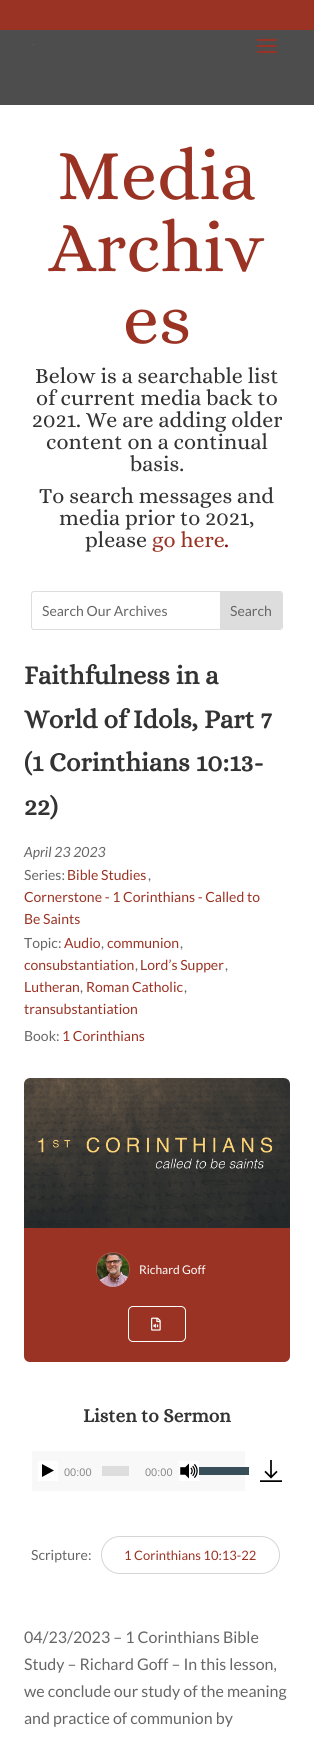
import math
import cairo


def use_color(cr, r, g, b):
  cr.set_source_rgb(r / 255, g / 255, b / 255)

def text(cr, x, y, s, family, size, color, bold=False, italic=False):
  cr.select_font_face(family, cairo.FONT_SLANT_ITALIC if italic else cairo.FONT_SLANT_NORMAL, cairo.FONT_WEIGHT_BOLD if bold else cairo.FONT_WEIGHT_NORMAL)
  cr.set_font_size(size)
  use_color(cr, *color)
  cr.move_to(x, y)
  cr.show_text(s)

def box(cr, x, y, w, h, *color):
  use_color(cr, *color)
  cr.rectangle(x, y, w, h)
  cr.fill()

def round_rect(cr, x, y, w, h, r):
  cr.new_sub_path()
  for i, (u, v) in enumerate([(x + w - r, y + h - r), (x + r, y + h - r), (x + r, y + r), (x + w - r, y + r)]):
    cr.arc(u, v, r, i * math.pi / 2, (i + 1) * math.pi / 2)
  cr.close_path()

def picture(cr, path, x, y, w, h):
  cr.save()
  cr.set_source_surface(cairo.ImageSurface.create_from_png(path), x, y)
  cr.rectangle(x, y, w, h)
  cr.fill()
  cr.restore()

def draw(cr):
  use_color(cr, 255, 255, 255)
  cr.paint()
  box(cr, 0, 0, 314, 30, 154, 51, 36)
  box(cr, 0, 30, 314, 75, 77, 77, 77)
  box(cr, 33, 44, 1, 1, 100, 100, 100)
  picture(cr, "img_01.png", 257, 38, 20, 15)
  round_rect(cr, 31.5, 591.5, 251, 38, 2.5)
  use_color(cr, 221, 221, 221)
  cr.set_line_width(1)
  cr.stroke()
  cr.new_path()
  cr.move_to(220, 592)
  cr.line_to(280, 592)
  cr.curve_to(281, 592, 282, 593, 282, 594)
  cr.line_to(282, 627)
  cr.curve_to(282, 628, 281, 629, 280, 629)
  cr.line_to(220, 629)
  cr.close_path()
  cr.fill()
  use_color(cr, 154, 51, 36)
  cr.new_path()
  cr.move_to(24, 1227)
  cr.line_to(290, 1227)
  cr.line_to(290, 1356)
  cr.curve_to(290, 1359.5, 287.5, 1362, 284, 1362)
  cr.line_to(30, 1362)
  cr.curve_to(26.5, 1362, 24, 1359.5, 24, 1356)
  cr.close_path()
  cr.fill()
  picture(cr, "img_02.png", 24, 1078, 266, 150)
  cr.arc(113, 1269, 16.5, 0, 2 * math.pi)
  use_color(cr, 170, 84, 71)
  cr.stroke()
  picture(cr, "img_03.png", 97, 1253, 32, 34)
  round_rect(cr, 128.5, 1306.5, 57, 35, 4.5)
  use_color(cr, 255, 255, 255)
  cr.stroke()
  picture(cr, "img_04.png", 151, 1317, 10, 14)
  box(cr, 32, 1451, 213, 40, 248, 248, 248)
  box(cr, 38, 1461, 20, 20, 255, 255, 255)
  picture(cr, "img_05.png", 42, 1464, 12, 13)
  box(cr, 102, 1466, 27, 10, 221, 221, 221)
  box(cr, 179, 1461, 20, 20, 255, 255, 255)
  picture(cr, "img_06.png", 180, 1463, 18, 16)
  box(cr, 199, 1467, 50, 8, 56, 78, 88)
  picture(cr, "img_07.png", 260, 1460, 22, 22)
  round_rect(cr, 101.5, 1536.5, 178, 37, 18.5)
  use_color(cr, 213, 213, 213)
  cr.stroke()
  text(cr, 57, 199, "Media", "Alice", 72, (154, 51, 36))
  text(cr, 49, 271, "Archiv", "Alice", 72, (154, 51, 36))
  text(cr, 123, 343, "es", "Alice", 72, (154, 51, 36))
  text(cr, 35, 383, "Below is a searchable list", "Alice", 22, (51, 51, 51))
  text(cr, 36, 405, "of current media back to", "Alice", 22, (51, 51, 51))
  text(cr, 32, 427, "2021. We are adding older", "Alice", 22, (51, 51, 51))
  text(cr, 46, 449, "content on a continual", "Alice", 22, (51, 51, 51))
  text(cr, 130, 471, "basis.", "Alice", 22, (51, 51, 51))
  text(cr, 39, 503, "To search messages and", "Alice", 22, (51, 51, 51))
  text(cr, 59, 525, "media prior to 2021,", "Alice", 22, (51, 51, 51))
  text(cr, 85, 547, "please", "Alice", 22, (51, 51, 51))
  text(cr, 152, 547, "go here", "Alice", 22, (154, 51, 36))
  text(cr, 224, 547, ".", "Alice", 22, (128, 0, 0))
  text(cr, 42, 616, "Search Our Archives", "Lato", 14, (102, 102, 102))
  text(cr, 230, 616, "Search", "Lato", 14, (102, 102, 102))
  text(cr, 24, 684, "Faithfulness in a", "Alice", 26.5, (51, 51, 51), bold=True)
  text(cr, 24, 728, "World of Idols, Part 7", "Alice", 26.5, (51, 51, 51), bold=True)
  text(cr, 24, 771, "(1 Corinthians 10:13-", "Alice", 26.5, (51, 51, 51), bold=True)
  text(cr, 24, 815, "22)", "Alice", 26.5, (51, 51, 51), bold=True)
  text(cr, 24, 857, "April 23 2023", "Lato", 14, (102, 102, 102), italic=True)
  text(cr, 24, 880, "Series:", "Lato", 14, (102, 102, 102))
  text(cr, 67, 880, "Bible Studies", "Lato", 14, (154, 51, 36))
  text(cr, 148, 880, ",", "Lato", 14, (102, 102, 102))
  text(cr, 24, 902, "Cornerstone - 1 Corinthians - Called to", "Lato", 14, (154, 51, 36))
  text(cr, 24, 924, "Be Saints", "Lato", 14, (154, 51, 36))
  text(cr, 24, 948, "Topic:", "Lato", 14, (102, 102, 102))
  text(cr, 64, 948, "Audio", "Lato", 14, (154, 51, 36))
  text(cr, 101, 948, ",", "Lato", 14, (102, 102, 102))
  text(cr, 107, 948, "communion", "Lato", 14, (154, 51, 36))
  text(cr, 180, 948, ",", "Lato", 14, (102, 102, 102))
  text(cr, 24, 970, "consubstantiation", "Lato", 14, (154, 51, 36))
  text(cr, 135, 970, ",", "Lato", 14, (102, 102, 102))
  text(cr, 140, 970, "Lord’s Supper", "Lato", 14, (154, 51, 36))
  text(cr, 225, 970, ",", "Lato", 14, (102, 102, 102))
  text(cr, 24, 992, "Lutheran", "Lato", 14, (154, 51, 36))
  text(cr, 80, 992, ",", "Lato", 14, (102, 102, 102))
  text(cr, 86, 992, "Roman Catholic", "Lato", 14, (154, 51, 36))
  text(cr, 184, 992, ",", "Lato", 14, (102, 102, 102))
  text(cr, 24, 1014, "transubstantiation", "Lato", 14, (154, 51, 36))
  text(cr, 24, 1041, "Book:", "Lato", 14, (102, 102, 102))
  text(cr, 62, 1041, "1 Corinthians", "Lato", 14, (154, 51, 36))
  text(cr, 139, 1274, "Richard Goff", "Lato", 12, (255, 255, 255))
  text(cr, 83, 1422, "Listen to Sermon", "Alice", 19.25, (51, 51, 51), bold=True)
  text(cr, 64, 1476, "00:00", "Liberation Sans", 11, (136, 136, 136))
  text(cr, 145, 1476, "00:00", "Liberation Sans", 11, (136, 136, 136))
  text(cr, 31, 1560, "Scripture:", "Lato", 14, (102, 102, 102))
  text(cr, 124, 1560, "1 Corinthians 10:13-22", "Lato", 13, (154, 51, 36))
  text(cr, 24, 1643, "04/23/2023 – 1 Corinthians Bible", "Lato", 16, (102, 102, 102))
  text(cr, 24, 1670, "Study – Richard Goff – In this lesson,", "Lato", 16, (102, 102, 102))
  text(cr, 24, 1697, "we conclude our study of the meaning", "Lato", 16, (102, 102, 102))
  text(cr, 24, 1724, "and practice of communion by", "Lato", 16, (102, 102, 102))


surface = cairo.ImageSurface(cairo.FORMAT_RGB24, 314, 1738)
cr = cairo.Context(surface)
options = cairo.FontOptions()
options.set_hint_metrics(cairo.HINT_METRICS_OFF)
options.set_hint_style(cairo.HINT_STYLE_NONE)
cr.set_font_options(options)
cr.set_miter_limit(4)
draw(cr)
surface.write_to_png("out.png")
